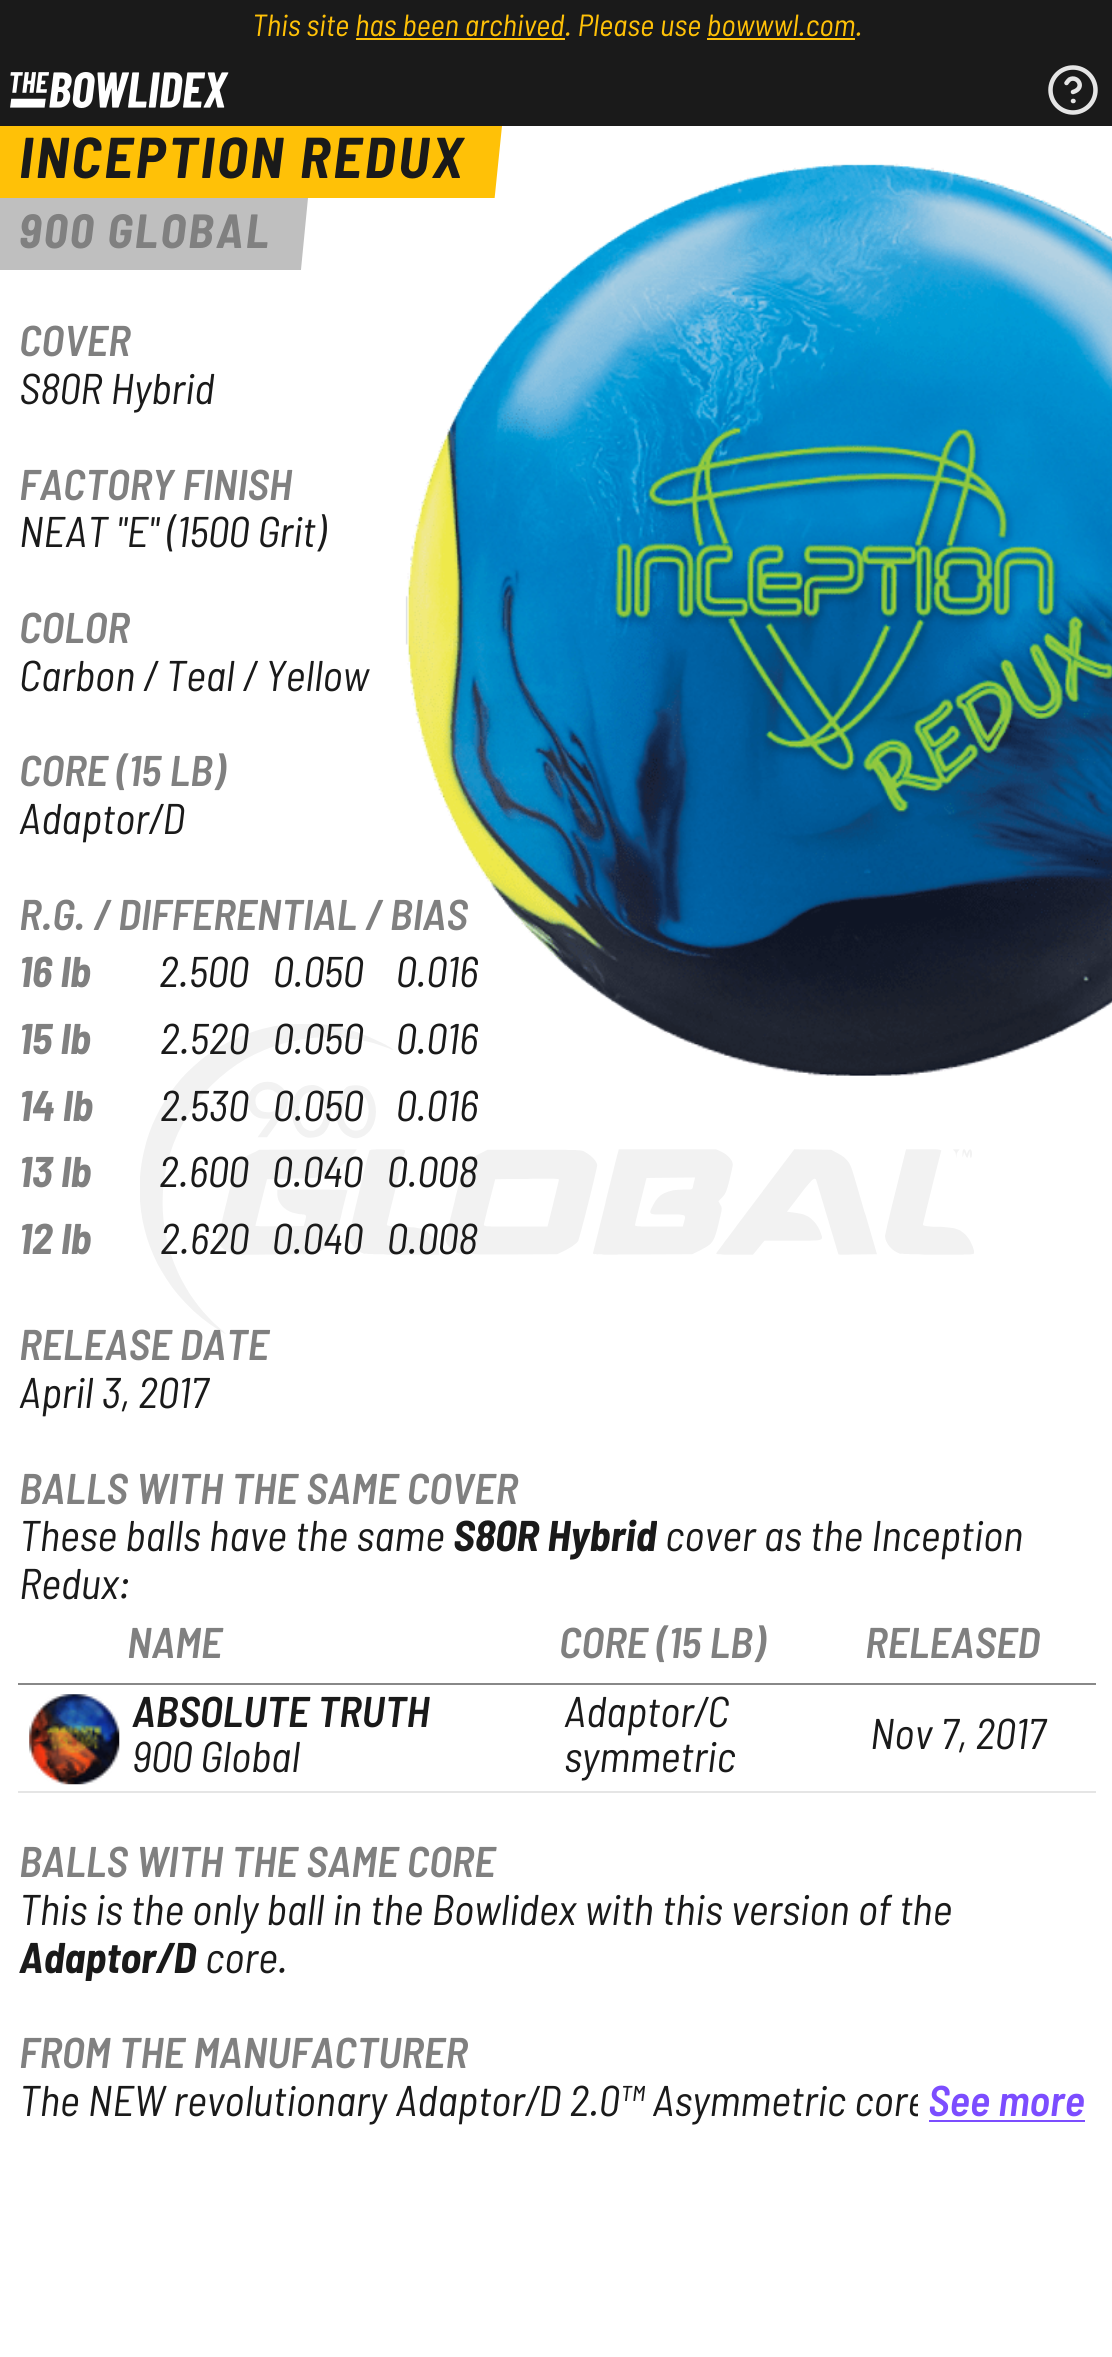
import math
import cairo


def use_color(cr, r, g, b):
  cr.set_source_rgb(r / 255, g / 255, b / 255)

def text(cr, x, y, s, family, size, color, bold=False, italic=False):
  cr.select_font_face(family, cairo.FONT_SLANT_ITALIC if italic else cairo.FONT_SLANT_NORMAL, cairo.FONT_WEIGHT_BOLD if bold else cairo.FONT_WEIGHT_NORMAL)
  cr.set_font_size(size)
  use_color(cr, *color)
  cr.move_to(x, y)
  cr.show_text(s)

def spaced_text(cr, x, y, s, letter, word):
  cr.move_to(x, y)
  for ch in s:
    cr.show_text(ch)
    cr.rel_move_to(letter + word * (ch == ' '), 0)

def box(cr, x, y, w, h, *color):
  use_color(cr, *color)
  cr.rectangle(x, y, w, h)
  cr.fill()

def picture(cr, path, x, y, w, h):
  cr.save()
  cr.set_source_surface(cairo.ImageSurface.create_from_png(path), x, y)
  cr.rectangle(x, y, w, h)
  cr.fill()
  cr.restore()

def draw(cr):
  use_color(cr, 255, 255, 255)
  cr.paint()
  picture(cr, "img_01.png", 140, 1024, 834, 310)
  box(cr, 0, 0, 1112, 126, 26, 26, 26)
  box(cr, 356, 38, 209, 2, 255, 193, 7)
  box(cr, 707, 38, 148, 2, 255, 193, 7)
  picture(cr, "img_02.png", 10, 72, 219, 36)
  cr.arc(1073, 90, 22.5, 0, 2 * math.pi)
  use_color(cr, 229, 229, 229)
  cr.set_line_width(4.5)
  cr.stroke()
  cr.new_path()
  cr.move_to(1066.5, 83)
  cr.curve_to(1067, 82, 1068.5, 80.5, 1069.5, 79.5)
  cr.curve_to(1077.5, 75, 1086, 88, 1073, 92)
  cr.move_to(1073, 101)
  cr.line_to(1073.5, 101)
  cr.set_line_cap(cairo.LINE_CAP_ROUND)
  cr.set_line_join(cairo.LINE_JOIN_ROUND)
  cr.stroke()
  picture(cr, "img_03.png", 405, 163, 707, 913)
  cr.save()
  cr.rectangle(0, 126, 502, 72)
  cr.clip()
  use_color(cr, 255, 193, 7)
  cr.new_path()
  cr.move_to(-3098, 351)
  cr.line_to(-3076, 126)
  cr.line_to(502, 126)
  cr.line_to(479, 351)
  cr.close_path()
  cr.fill()
  cr.restore()
  cr.save()
  cr.rectangle(0, 198, 308, 72)
  cr.clip()
  use_color(cr, 191, 191, 191)
  cr.new_path()
  cr.move_to(-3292, 423)
  cr.line_to(-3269, 198)
  cr.line_to(308, 198)
  cr.line_to(286, 423)
  cr.close_path()
  cr.fill()
  cr.restore()
  box(cr, 18, 1683, 1078, 2, 136, 136, 136)
  picture(cr, "img_04.png", 29, 1694, 91, 91)
  box(cr, 18, 1791, 1078, 2, 229, 229, 229)
  box(cr, 929, 2120, 156, 2, 124, 77, 255)
  text(cr, 252, 36, "This site has been archived. Please use bowwwl.com.", "Barlow Semi Condensed", 30.6, (255, 193, 7), italic=True)
  cr.select_font_face("Barlow Semi Condensed", cairo.FONT_SLANT_ITALIC, cairo.FONT_WEIGHT_BOLD)
  cr.set_font_size(57.5)
  use_color(cr, 26, 26, 26)
  spaced_text(cr, 19, 178, "INCEPTION REDUX", 2.9, 0)
  cr.set_font_size(48)
  use_color(cr, 128, 128, 128)
  spaced_text(cr, 19, 248, "900 GLOBAL", 2.4, 0)
  text(cr, 19, 356, "COVER", "Barlow Semi Condensed SemiBold", 43, (128, 128, 128), italic=True)
  text(cr, 19, 404, "S80R Hybrid", "Barlow Semi Condensed", 43, (26, 26, 26), italic=True)
  text(cr, 19, 500, "FACTORY FINISH", "Barlow Semi Condensed SemiBold", 43, (128, 128, 128), italic=True)
  text(cr, 19, 547, "NEAT \"E\" (1500 Grit)", "Barlow Semi Condensed", 43, (26, 26, 26), italic=True)
  text(cr, 19, 643, "COLOR", "Barlow Semi Condensed SemiBold", 43, (128, 128, 128), italic=True)
  text(cr, 19, 691, "Carbon / Teal / Yellow", "Barlow Semi Condensed", 43, (26, 26, 26), italic=True)
  text(cr, 19, 786, "CORE (15 LB)", "Barlow Semi Condensed SemiBold", 43, (128, 128, 128), italic=True)
  text(cr, 19, 834, "Adaptor/D", "Barlow Semi Condensed", 43, (26, 26, 26), italic=True)
  text(cr, 19, 930, "R.G. / DIFFERENTIAL / BIAS", "Barlow Semi Condensed SemiBold", 43, (128, 128, 128), italic=True)
  text(cr, 19, 987, "16 lb", "Barlow Semi Condensed", 43, (128, 128, 128), bold=True, italic=True)
  text(cr, 159, 987, "2.500", "Barlow Semi Condensed", 43, (26, 26, 26), italic=True)
  text(cr, 273, 987, "0.050", "Barlow Semi Condensed", 43, (26, 26, 26), italic=True)
  text(cr, 396, 987, "0.016", "Barlow Semi Condensed", 43, (26, 26, 26), italic=True)
  text(cr, 19, 1054, "15 lb", "Barlow Semi Condensed", 43, (128, 128, 128), bold=True, italic=True)
  text(cr, 160, 1054, "2.520", "Barlow Semi Condensed", 43, (26, 26, 26), italic=True)
  text(cr, 273, 1054, "0.050", "Barlow Semi Condensed", 43, (26, 26, 26), italic=True)
  text(cr, 396, 1054, "0.016", "Barlow Semi Condensed", 43, (26, 26, 26), italic=True)
  text(cr, 19, 1121, "14 lb", "Barlow Semi Condensed", 43, (128, 128, 128), bold=True, italic=True)
  text(cr, 160, 1121, "2.530", "Barlow Semi Condensed", 43, (26, 26, 26), italic=True)
  text(cr, 273, 1121, "0.050", "Barlow Semi Condensed", 43, (26, 26, 26), italic=True)
  text(cr, 396, 1121, "0.016", "Barlow Semi Condensed", 43, (26, 26, 26), italic=True)
  text(cr, 19, 1187, "13 lb", "Barlow Semi Condensed", 43, (128, 128, 128), bold=True, italic=True)
  text(cr, 159, 1187, "2.600", "Barlow Semi Condensed", 43, (26, 26, 26), italic=True)
  text(cr, 272, 1187, "0.040", "Barlow Semi Condensed", 43, (26, 26, 26), italic=True)
  text(cr, 387, 1187, "0.008", "Barlow Semi Condensed", 43, (26, 26, 26), italic=True)
  text(cr, 19, 1254, "12 lb", "Barlow Semi Condensed", 43, (128, 128, 128), bold=True, italic=True)
  text(cr, 160, 1254, "2.620", "Barlow Semi Condensed", 43, (26, 26, 26), italic=True)
  text(cr, 272, 1254, "0.040", "Barlow Semi Condensed", 43, (26, 26, 26), italic=True)
  text(cr, 387, 1254, "0.008", "Barlow Semi Condensed", 43, (26, 26, 26), italic=True)
  text(cr, 19, 1360, "RELEASE DATE", "Barlow Semi Condensed SemiBold", 43, (128, 128, 128), italic=True)
  text(cr, 19, 1408, "April 3, 2017", "Barlow Semi Condensed", 43, (26, 26, 26), italic=True)
  text(cr, 19, 1504, "BALLS WITH THE SAME COVER", "Barlow Semi Condensed SemiBold", 43, (128, 128, 128), italic=True)
  text(cr, 19, 1551, "These balls have the same", "Barlow Semi Condensed", 43, (26, 26, 26), italic=True)
  text(cr, 453, 1551, "S80R Hybrid", "Barlow Semi Condensed", 43, (26, 26, 26), bold=True, italic=True)
  text(cr, 665, 1551, "cover as the Inception", "Barlow Semi Condensed", 43, (26, 26, 26), italic=True)
  text(cr, 19, 1599, "Redux:", "Barlow Semi Condensed", 43, (26, 26, 26), italic=True)
  text(cr, 127, 1658, "NAME", "Barlow Semi Condensed SemiBold", 43, (128, 128, 128), italic=True)
  text(cr, 559, 1658, "CORE (15 LB)", "Barlow Semi Condensed SemiBold", 43, (128, 128, 128), italic=True)
  text(cr, 865, 1658, "RELEASED", "Barlow Semi Condensed SemiBold", 43, (128, 128, 128), italic=True)
  text(cr, 132, 1727, "ABSOLUTE TRUTH", "Barlow Semi Condensed SemiBold", 43, (26, 26, 26), italic=True)
  text(cr, 132, 1772, "900 Global", "Barlow Semi Condensed", 43, (26, 26, 26), italic=True)
  text(cr, 564, 1727, "Adaptor/C", "Barlow Semi Condensed", 43, (26, 26, 26), italic=True)
  text(cr, 564, 1772, "symmetric", "Barlow Semi Condensed", 43, (26, 26, 26), italic=True)
  text(cr, 870, 1749, "Nov 7, 2017", "Barlow Semi Condensed", 43, (26, 26, 26), italic=True)
  text(cr, 19, 1877, "BALLS WITH THE SAME CORE", "Barlow Semi Condensed SemiBold", 43, (128, 128, 128), italic=True)
  text(cr, 19, 1925, "This is the only ball in the Bowlidex with this version of the", "Barlow Semi Condensed", 43, (26, 26, 26), italic=True)
  text(cr, 19, 1973, "Adaptor/D", "Barlow Semi Condensed", 43, (26, 26, 26), bold=True, italic=True)
  text(cr, 205, 1973, "core.", "Barlow Semi Condensed", 43, (26, 26, 26), italic=True)
  text(cr, 19, 2068, "FROM THE MANUFACTURER", "Barlow Semi Condensed SemiBold", 43, (128, 128, 128), italic=True)
  text(cr, 19, 2116, "The NEW revolutionary Adaptor/D 2.0™ Asymmetric core", "Barlow Semi Condensed", 43, (26, 26, 26), italic=True)
  box(cr, 918, 2093, 8, 24, 255, 255, 255)
  text(cr, 928, 2116, "See more", "Barlow Semi Condensed SemiBold", 43, (124, 77, 255), italic=True)


surface = cairo.ImageSurface(cairo.FORMAT_RGB24, 1112, 2357)
cr = cairo.Context(surface)
options = cairo.FontOptions()
options.set_hint_metrics(cairo.HINT_METRICS_OFF)
options.set_hint_style(cairo.HINT_STYLE_NONE)
cr.set_font_options(options)
cr.set_miter_limit(4)
draw(cr)
surface.write_to_png("out.png")
